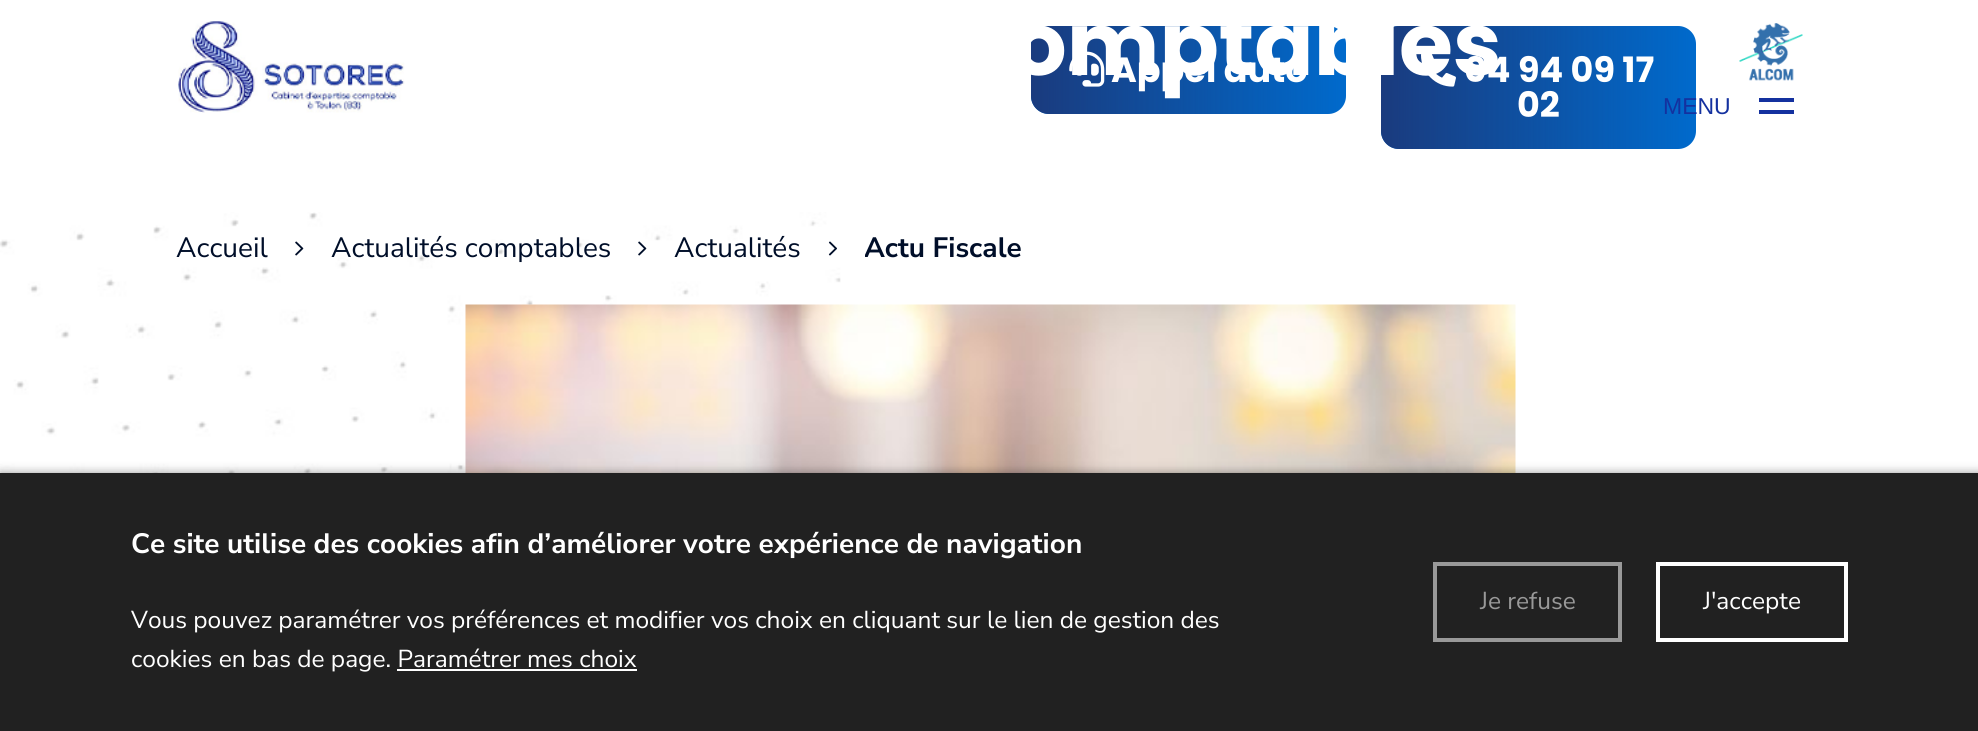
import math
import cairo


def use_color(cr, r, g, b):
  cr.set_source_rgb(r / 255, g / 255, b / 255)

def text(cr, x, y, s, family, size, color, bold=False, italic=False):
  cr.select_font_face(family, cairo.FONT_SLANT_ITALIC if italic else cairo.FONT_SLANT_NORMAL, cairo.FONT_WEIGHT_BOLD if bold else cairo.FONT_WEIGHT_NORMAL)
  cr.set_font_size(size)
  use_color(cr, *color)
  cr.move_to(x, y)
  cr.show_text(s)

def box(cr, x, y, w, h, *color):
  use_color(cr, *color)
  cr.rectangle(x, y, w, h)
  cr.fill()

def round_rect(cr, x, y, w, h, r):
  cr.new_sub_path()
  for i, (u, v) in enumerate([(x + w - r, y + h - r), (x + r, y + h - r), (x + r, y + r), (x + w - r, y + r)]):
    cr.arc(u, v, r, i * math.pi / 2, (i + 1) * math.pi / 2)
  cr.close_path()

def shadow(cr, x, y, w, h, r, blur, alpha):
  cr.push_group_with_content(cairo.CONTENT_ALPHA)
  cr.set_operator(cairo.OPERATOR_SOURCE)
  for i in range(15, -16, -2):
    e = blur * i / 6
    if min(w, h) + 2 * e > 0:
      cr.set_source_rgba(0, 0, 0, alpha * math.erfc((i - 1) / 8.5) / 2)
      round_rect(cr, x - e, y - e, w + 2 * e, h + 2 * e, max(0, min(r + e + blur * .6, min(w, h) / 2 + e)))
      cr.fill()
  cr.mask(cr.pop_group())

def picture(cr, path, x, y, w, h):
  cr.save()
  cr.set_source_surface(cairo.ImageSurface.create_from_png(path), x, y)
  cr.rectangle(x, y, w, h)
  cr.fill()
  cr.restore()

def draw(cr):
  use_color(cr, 255, 255, 255)
  cr.paint()
  picture(cr, "img_01.png", 178, 21, 227, 92)
  use_color(cr, 0, 106, 204)
  round_rect(cr, 1031, 26, 315, 88, 18)
  cr.fill()
  gradient = cairo.LinearGradient(1031, 26, 1346, 26)
  gradient.add_color_stop_rgba(0, 0.102, 0.231, 0.494, 1)
  gradient.add_color_stop_rgba(1, 0.102, 0.231, 0.494, 0)
  cr.set_source(gradient)
  round_rect(cr, 1031, 26, 315, 88, 18)
  cr.fill()
  picture(cr, "img_02.png", 1069, 51, 36, 36)
  use_color(cr, 0, 106, 204)
  round_rect(cr, 1381, 26, 315, 123, 18)
  cr.fill()
  gradient = cairo.LinearGradient(1381, 26, 1696, 26)
  gradient.add_color_stop_rgba(0, 0.102, 0.231, 0.494, 1)
  gradient.add_color_stop_rgba(1, 0.102, 0.231, 0.494, 0)
  cr.set_source(gradient)
  round_rect(cr, 1381, 26, 315, 123, 18)
  cr.fill()
  picture(cr, "img_03.png", 1421, 51, 35, 36)
  picture(cr, "img_04.png", 1739, 23, 64, 58)
  box(cr, 1759, 98, 35, 4, 20, 49, 159)
  box(cr, 1759, 110, 35, 4, 20, 49, 159)
  picture(cr, "img_05.png", 0, 212, 841, 261)
  picture(cr, "img_06.png", 295, 241, 9, 15)
  picture(cr, "img_06.png", 638, 241, 9, 15)
  picture(cr, "img_07.png", 828, 241, 9, 15)
  picture(cr, "img_08.png", 465, 304, 1051, 169)
  use_color(cr, 0, 0, 0)
  shadow(cr, 0, 473, 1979, 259, 0, 5, 0.4)
  box(cr, 0, 473, 1978, 258, 33, 33, 33)
  box(cr, 397, 669, 240, 2, 255, 255, 255)
  cr.rectangle(1435, 564, 185, 76)
  use_color(cr, 153, 153, 153)
  cr.set_line_width(4)
  cr.stroke()
  cr.rectangle(1658, 564, 188, 76)
  use_color(cr, 255, 255, 255)
  cr.stroke()
  text(cr, 1111, 82, "Appel auto", "Poppins", 35, (255, 255, 255), bold=True)
  text(cr, 1464, 82, "04 94 09 17", "Poppins", 35, (255, 255, 255), bold=True)
  text(cr, 1011, 75, "omptables", "Poppins", 87.5, (255, 255, 255), bold=True)
  text(cr, 1517, 117, "02", "Poppins", 35, (255, 255, 255), bold=True)
  text(cr, 1663, 114, "MENU", "Liberation Sans", 23, (20, 49, 159))
  text(cr, 176, 257, "Accueil", "Nunito Sans ExtraLight", 28, (0, 14, 41))
  text(cr, 331, 257, "Actualités comptables", "Nunito Sans ExtraLight", 28, (0, 14, 41))
  text(cr, 674, 257, "Actualités", "Nunito Sans ExtraLight", 28, (0, 14, 41))
  cr.save()
  cr.rectangle(865, 229, 157, 39)
  cr.clip()
  text(cr, 864, 257, "Actu Fiscale", "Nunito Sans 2 ExtraLight", 28, (0, 14, 41))
  cr.restore()
  text(cr, 131, 553, "Ce site utilise des cookies afin d’améliorer votre expérience de navigation", "Nunito Sans 2 ExtraLight", 28, (255, 255, 255))
  text(cr, 131, 628, "Vous pouvez paramétrer vos préférences et modifier vos choix en cliquant sur le lien de gestion des", "Nunito Sans ExtraLight", 24.5, (255, 255, 255))
  text(cr, 131, 667, "cookies en bas de page. Paramétrer mes choix", "Nunito Sans ExtraLight", 24.5, (255, 255, 255))
  text(cr, 1480, 609, "Je refuse", "Nunito Sans ExtraLight", 24.5, (153, 153, 153))
  text(cr, 1703, 609, "J'accepte", "Nunito Sans ExtraLight", 24.5, (255, 255, 255))


surface = cairo.ImageSurface(cairo.FORMAT_RGB24, 1978, 731)
cr = cairo.Context(surface)
options = cairo.FontOptions()
options.set_hint_metrics(cairo.HINT_METRICS_OFF)
options.set_hint_style(cairo.HINT_STYLE_NONE)
cr.set_font_options(options)
cr.set_miter_limit(4)
draw(cr)
surface.write_to_png("out.png")
